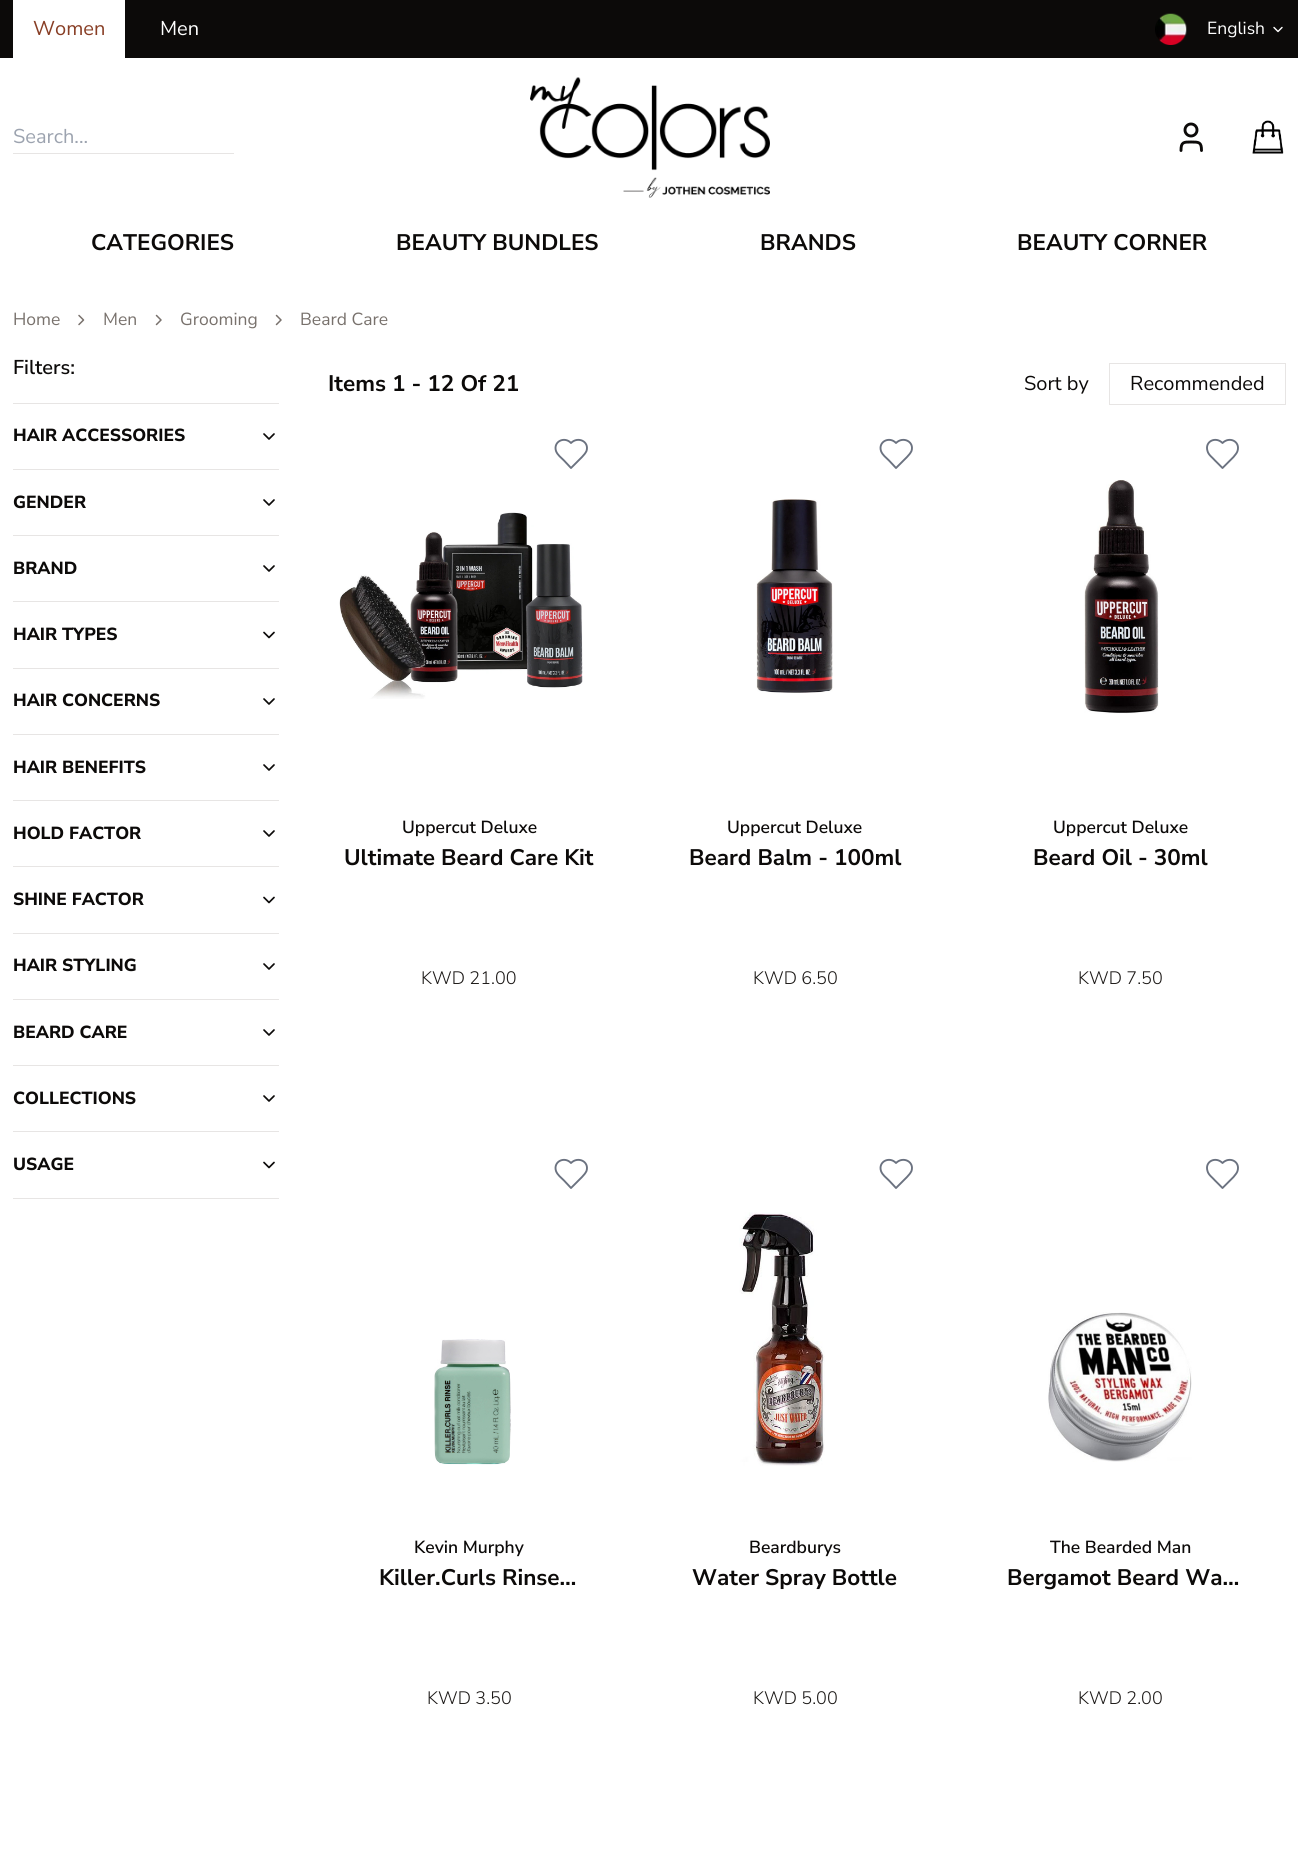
import math
import cairo


def use_color(cr, r, g, b):
  cr.set_source_rgb(r / 255, g / 255, b / 255)

def text(cr, x, y, s, family, size, color, bold=False, italic=False):
  cr.select_font_face(family, cairo.FONT_SLANT_ITALIC if italic else cairo.FONT_SLANT_NORMAL, cairo.FONT_WEIGHT_BOLD if bold else cairo.FONT_WEIGHT_NORMAL)
  cr.set_font_size(size)
  use_color(cr, *color)
  cr.move_to(x, y)
  cr.show_text(s)

def box(cr, x, y, w, h, *color):
  use_color(cr, *color)
  cr.rectangle(x, y, w, h)
  cr.fill()

def picture(cr, path, x, y, w, h):
  cr.save()
  cr.set_source_surface(cairo.ImageSurface.create_from_png(path), x, y)
  cr.rectangle(x, y, w, h)
  cr.fill()
  cr.restore()

def draw(cr):
  use_color(cr, 255, 255, 255)
  cr.paint()
  box(cr, 0, 0, 1298, 58, 12, 10, 9)
  box(cr, 13, 0, 112, 58, 255, 255, 255)
  picture(cr, "img_01.png", 1155, 13, 32, 32)
  cr.new_path()
  cr.move_to(1274, 27.5)
  cr.line_to(1278, 31.5)
  cr.line_to(1282, 27.5)
  cr.set_line_width(1.4)
  cr.set_line_cap(cairo.LINE_CAP_ROUND)
  cr.set_line_join(cairo.LINE_JOIN_ROUND)
  cr.stroke()
  box(cr, 13, 153, 221, 1, 231, 229, 228)
  picture(cr, "img_02.png", 530, 77, 240, 121)
  cr.new_path()
  cr.move_to(1201.5, 150.5)
  cr.curve_to(1201.5, 142, 1199, 142, 1191, 142)
  cr.curve_to(1183.5, 142, 1181, 142, 1181, 150.5)
  use_color(cr, 12, 10, 9)
  cr.set_line_width(2.9)
  cr.stroke()
  cr.arc(1191, 130, 6, 0, 2 * math.pi)
  cr.set_line_cap(cairo.LINE_CAP_BUTT)
  cr.set_line_join(cairo.LINE_JOIN_MITER)
  cr.stroke()
  picture(cr, "img_03.png", 1252, 120, 32, 34)
  cr.new_path()
  cr.move_to(79, 324.5)
  cr.line_to(83.5, 320)
  cr.line_to(79, 315.5)
  use_color(cr, 120, 113, 108)
  cr.set_line_width(1.5)
  cr.set_line_cap(cairo.LINE_CAP_ROUND)
  cr.set_line_join(cairo.LINE_JOIN_ROUND)
  cr.stroke()
  cr.new_path()
  cr.move_to(156.5, 324.5)
  cr.line_to(161, 320)
  cr.line_to(156.5, 315.5)
  cr.stroke()
  cr.new_path()
  cr.move_to(276.5, 324.5)
  cr.line_to(281, 320)
  cr.line_to(276.5, 315.5)
  cr.stroke()
  box(cr, 13, 403, 266, 1, 231, 229, 228)
  box(cr, 13, 469, 266, 1, 231, 229, 228)
  cr.new_path()
  cr.move_to(264, 434)
  cr.line_to(269, 439)
  cr.line_to(274, 434)
  use_color(cr, 12, 10, 9)
  cr.set_line_width(1.7)
  cr.stroke()
  box(cr, 13, 535, 266, 1, 231, 229, 228)
  cr.new_path()
  cr.move_to(264, 500)
  cr.line_to(269, 505)
  cr.line_to(274, 500)
  use_color(cr, 12, 10, 9)
  cr.stroke()
  box(cr, 13, 601, 266, 1, 231, 229, 228)
  cr.new_path()
  cr.move_to(264, 566)
  cr.line_to(269, 571)
  cr.line_to(274, 566)
  use_color(cr, 12, 10, 9)
  cr.stroke()
  box(cr, 13, 668, 266, 1, 231, 229, 228)
  cr.new_path()
  cr.move_to(264, 632.5)
  cr.line_to(269, 637.5)
  cr.line_to(274, 632.5)
  use_color(cr, 12, 10, 9)
  cr.stroke()
  box(cr, 13, 734, 266, 1, 231, 229, 228)
  cr.new_path()
  cr.move_to(264, 699)
  cr.line_to(269, 704)
  cr.line_to(274, 699)
  use_color(cr, 12, 10, 9)
  cr.stroke()
  box(cr, 13, 800, 266, 1, 231, 229, 228)
  cr.new_path()
  cr.move_to(264, 765)
  cr.line_to(269, 770)
  cr.line_to(274, 765)
  use_color(cr, 12, 10, 9)
  cr.stroke()
  box(cr, 13, 866, 266, 1, 231, 229, 228)
  cr.new_path()
  cr.move_to(264, 831)
  cr.line_to(269, 836)
  cr.line_to(274, 831)
  use_color(cr, 12, 10, 9)
  cr.stroke()
  box(cr, 13, 933, 266, 1, 231, 229, 228)
  cr.new_path()
  cr.move_to(264, 897.5)
  cr.line_to(269, 902.5)
  cr.line_to(274, 897.5)
  use_color(cr, 12, 10, 9)
  cr.stroke()
  box(cr, 13, 999, 266, 1, 231, 229, 228)
  cr.new_path()
  cr.move_to(264, 964)
  cr.line_to(269, 969)
  cr.line_to(274, 964)
  use_color(cr, 12, 10, 9)
  cr.stroke()
  box(cr, 13, 1065, 266, 1, 231, 229, 228)
  cr.new_path()
  cr.move_to(264, 1030)
  cr.line_to(269, 1035)
  cr.line_to(274, 1030)
  use_color(cr, 12, 10, 9)
  cr.stroke()
  box(cr, 13, 1131, 266, 1, 231, 229, 228)
  cr.new_path()
  cr.move_to(264, 1096)
  cr.line_to(269, 1101)
  cr.line_to(274, 1096)
  use_color(cr, 12, 10, 9)
  cr.stroke()
  box(cr, 13, 1198, 266, 1, 231, 229, 228)
  cr.new_path()
  cr.move_to(264, 1162.5)
  cr.line_to(269, 1167.5)
  cr.line_to(274, 1162.5)
  use_color(cr, 12, 10, 9)
  cr.stroke()
  cr.rectangle(1109.5, 363.5, 176, 41)
  use_color(cr, 231, 229, 228)
  cr.set_line_width(1)
  cr.set_line_cap(cairo.LINE_CAP_BUTT)
  cr.set_line_join(cairo.LINE_JOIN_MITER)
  cr.stroke()
  cr.new_path()
  cr.move_to(582, 457)
  cr.curve_to(584, 455, 585.5, 453, 586.5, 451)
  cr.curve_to(589.5, 441.5, 578, 436, 571, 443)
  cr.curve_to(564.5, 436, 553, 441.5, 556, 451)
  cr.curve_to(557.5, 455, 561, 457.5, 564, 460.5)
  cr.line_to(571, 468)
  cr.close_path()
  use_color(cr, 107, 114, 128)
  cr.set_line_width(1.9)
  cr.set_line_cap(cairo.LINE_CAP_ROUND)
  cr.set_line_join(cairo.LINE_JOIN_ROUND)
  cr.stroke()
  picture(cr, "img_04.png", 339, 512, 244, 187)
  cr.new_path()
  cr.move_to(907, 457)
  cr.curve_to(909, 455, 910.5, 453, 911.5, 451)
  cr.curve_to(914.5, 441.5, 903, 436, 896, 443)
  cr.curve_to(889.5, 436, 878, 441.5, 881, 451)
  cr.curve_to(882.5, 455, 886, 457.5, 889, 460.5)
  cr.line_to(896, 468)
  cr.close_path()
  cr.stroke()
  picture(cr, "img_05.png", 756, 499, 77, 194)
  cr.new_path()
  cr.move_to(1233.5, 457)
  cr.curve_to(1235, 455, 1237, 453, 1237.5, 451)
  cr.curve_to(1240.5, 441.5, 1229.5, 436, 1222.5, 443)
  cr.curve_to(1215.5, 436, 1204.5, 441.5, 1207.5, 451)
  cr.curve_to(1208.5, 455, 1212.5, 457.5, 1215, 460.5)
  cr.line_to(1222.5, 468)
  cr.close_path()
  cr.stroke()
  picture(cr, "img_06.png", 1084, 480, 75, 234)
  cr.new_path()
  cr.move_to(582, 1177)
  cr.curve_to(584, 1175, 585.5, 1173, 586.5, 1171)
  cr.curve_to(589.5, 1161.5, 578, 1156, 571, 1163)
  cr.curve_to(564.5, 1156, 553, 1161.5, 556, 1171)
  cr.curve_to(557.5, 1175, 561, 1177.5, 564, 1180.5)
  cr.line_to(571, 1188)
  cr.close_path()
  cr.stroke()
  picture(cr, "img_07.png", 434, 1339, 77, 126)
  cr.new_path()
  cr.move_to(907, 1177)
  cr.curve_to(909, 1175, 910.5, 1173, 911.5, 1171)
  cr.curve_to(914.5, 1161.5, 903, 1156, 896, 1163)
  cr.curve_to(889.5, 1156, 878, 1161.5, 881, 1171)
  cr.curve_to(882.5, 1175, 886, 1177.5, 889, 1180.5)
  cr.line_to(896, 1188)
  cr.close_path()
  cr.stroke()
  picture(cr, "img_08.png", 739, 1212, 86, 254)
  cr.new_path()
  cr.move_to(1233.5, 1177)
  cr.curve_to(1235, 1175, 1237, 1173, 1237.5, 1171)
  cr.curve_to(1240.5, 1161.5, 1229.5, 1156, 1222.5, 1163)
  cr.curve_to(1215.5, 1156, 1204.5, 1161.5, 1207.5, 1171)
  cr.curve_to(1208.5, 1175, 1212.5, 1177.5, 1215, 1180.5)
  cr.line_to(1222.5, 1188)
  cr.close_path()
  cr.stroke()
  picture(cr, "img_09.png", 1048, 1312, 144, 150)
  text(cr, 33, 35, "Women", "Nunito Sans", 20, (136, 62, 37))
  text(cr, 160, 35, "Men", "Nunito Sans", 20, (255, 255, 255))
  text(cr, 1207, 34, "English", "Nunito Sans", 17.5, (255, 255, 255))
  text(cr, 13, 143, "Search...", "Nunito Sans", 20, (156, 163, 175))
  text(cr, 91, 250, "CATEGORIES", "Nunito Sans", 22.5, (12, 10, 9), bold=True)
  text(cr, 396, 250, "BEAUTY BUNDLES", "Nunito Sans", 22.5, (12, 10, 9), bold=True)
  text(cr, 760, 250, "BRANDS", "Nunito Sans", 22.5, (12, 10, 9), bold=True)
  text(cr, 1017, 250, "BEAUTY CORNER", "Nunito Sans", 22.5, (12, 10, 9), bold=True)
  text(cr, 13, 325, "Home", "Nunito Sans", 17.5, (120, 113, 108))
  text(cr, 103, 325, "Men", "Nunito Sans", 17.5, (120, 113, 108))
  text(cr, 180, 325, "Grooming", "Nunito Sans", 17.5, (120, 113, 108))
  text(cr, 300, 325, "Beard Care", "Nunito Sans", 17.5, (120, 113, 108))
  text(cr, 13, 374, "Filters:", "Nunito Sans SemiBold", 20, (12, 10, 9))
  text(cr, 13, 441, "HAIR ACCESSORIES", "Nunito Sans ExtraBold", 17.5, (12, 10, 9))
  text(cr, 13, 508, "GENDER", "Nunito Sans ExtraBold", 17.5, (12, 10, 9))
  text(cr, 13, 574, "BRAND", "Nunito Sans ExtraBold", 17.5, (12, 10, 9))
  text(cr, 13, 640, "HAIR TYPES", "Nunito Sans ExtraBold", 17.5, (12, 10, 9))
  text(cr, 13, 706, "HAIR CONCERNS", "Nunito Sans ExtraBold", 17.5, (12, 10, 9))
  text(cr, 13, 773, "HAIR BENEFITS", "Nunito Sans ExtraBold", 17.5, (12, 10, 9))
  text(cr, 13, 839, "HOLD FACTOR", "Nunito Sans ExtraBold", 17.5, (12, 10, 9))
  text(cr, 13, 905, "SHINE FACTOR", "Nunito Sans ExtraBold", 17.5, (12, 10, 9))
  text(cr, 13, 971, "HAIR STYLING", "Nunito Sans ExtraBold", 17.5, (12, 10, 9))
  text(cr, 13, 1038, "BEARD CARE", "Nunito Sans ExtraBold", 17.5, (12, 10, 9))
  text(cr, 13, 1104, "COLLECTIONS", "Nunito Sans ExtraBold", 17.5, (12, 10, 9))
  text(cr, 13, 1170, "USAGE", "Nunito Sans ExtraBold", 17.5, (12, 10, 9))
  text(cr, 328, 391, "Items 1 - 12 Of 21", "Nunito Sans", 22.5, (12, 10, 9), bold=True)
  text(cr, 1024, 390, "Sort by", "Nunito Sans", 20, (12, 10, 9))
  text(cr, 1130, 390, "Recommended", "Nunito Sans", 20, (12, 10, 9))
  text(cr, 402, 833, "Uppercut Deluxe", "Nunito Sans SemiBold", 17.5, (12, 10, 9))
  text(cr, 344, 865, "Ultimate Beard Care Kit", "Nunito Sans", 22.5, (12, 10, 9), bold=True)
  text(cr, 421, 984, "KWD 21.00", "Nunito Sans Light", 18, (28, 25, 23))
  text(cr, 727, 833, "Uppercut Deluxe", "Nunito Sans SemiBold", 17.5, (12, 10, 9))
  text(cr, 689, 865, "Beard Balm - 100ml", "Nunito Sans", 22.5, (12, 10, 9), bold=True)
  text(cr, 753, 984, "KWD 6.50", "Nunito Sans Light", 18, (28, 25, 23))
  text(cr, 1053, 833, "Uppercut Deluxe", "Nunito Sans SemiBold", 17.5, (12, 10, 9))
  text(cr, 1033, 865, "Beard Oil - 30ml", "Nunito Sans", 22.5, (12, 10, 9), bold=True)
  text(cr, 1078, 984, "KWD 7.50", "Nunito Sans Light", 18, (28, 25, 23))
  text(cr, 414, 1553, "Kevin Murphy", "Nunito Sans SemiBold", 17.5, (12, 10, 9))
  text(cr, 379, 1585, "Killer.Curls Rinse…", "Nunito Sans", 22.5, (12, 10, 9), bold=True)
  text(cr, 427, 1704, "KWD 3.50", "Nunito Sans Light", 18, (28, 25, 23))
  text(cr, 749, 1553, "Beardburys", "Nunito Sans SemiBold", 17.5, (12, 10, 9))
  text(cr, 692, 1585, "Water Spray Bottle", "Nunito Sans", 22.5, (12, 10, 9), bold=True)
  text(cr, 753, 1704, "KWD 5.00", "Nunito Sans Light", 18, (28, 25, 23))
  text(cr, 1050, 1553, "The Bearded Man", "Nunito Sans SemiBold", 17.5, (12, 10, 9))
  text(cr, 1007, 1585, "Bergamot Beard Wa…", "Nunito Sans", 22.5, (12, 10, 9), bold=True)
  text(cr, 1078, 1704, "KWD 2.00", "Nunito Sans Light", 18, (28, 25, 23))


surface = cairo.ImageSurface(cairo.FORMAT_RGB24, 1298, 1852)
cr = cairo.Context(surface)
options = cairo.FontOptions()
options.set_hint_metrics(cairo.HINT_METRICS_OFF)
options.set_hint_style(cairo.HINT_STYLE_NONE)
cr.set_font_options(options)
cr.set_miter_limit(4)
draw(cr)
surface.write_to_png("out.png")
